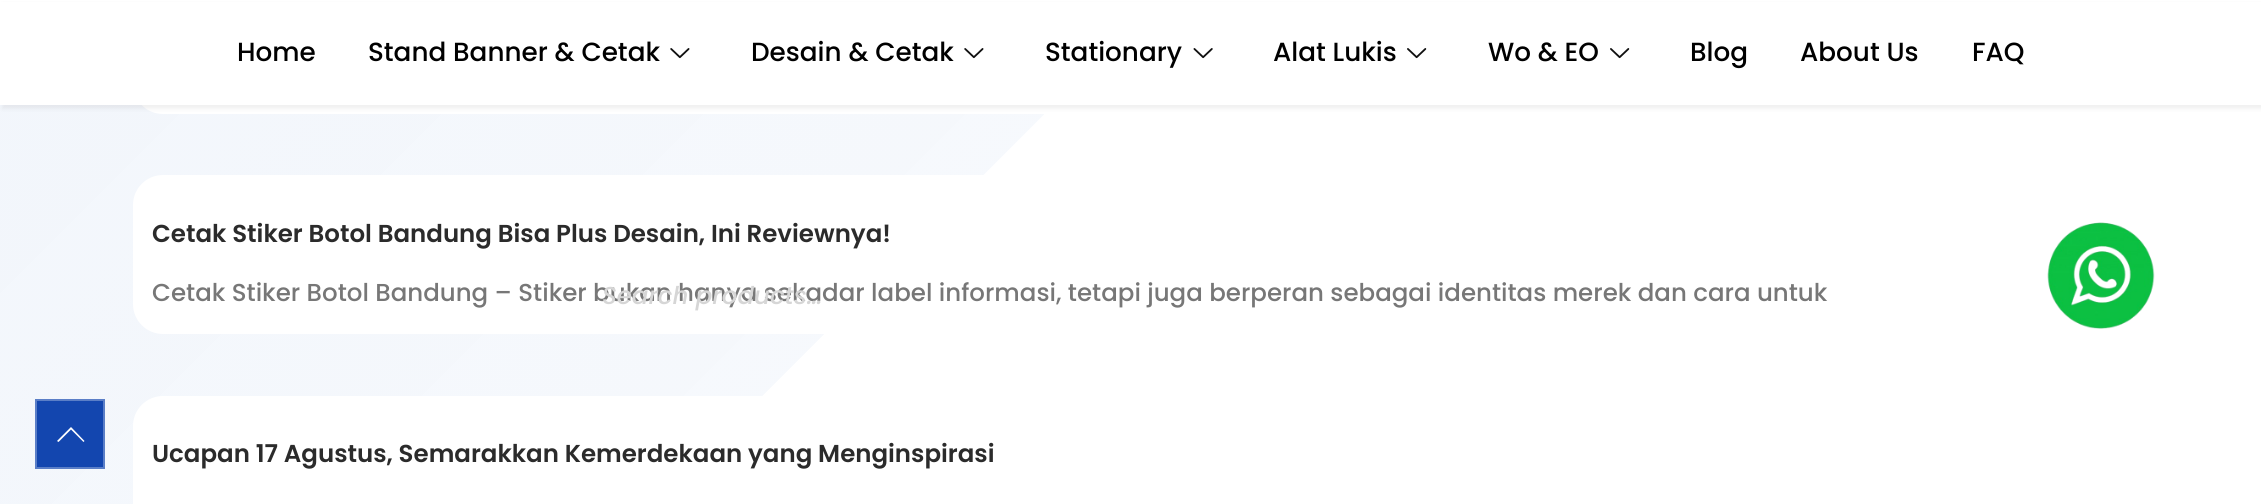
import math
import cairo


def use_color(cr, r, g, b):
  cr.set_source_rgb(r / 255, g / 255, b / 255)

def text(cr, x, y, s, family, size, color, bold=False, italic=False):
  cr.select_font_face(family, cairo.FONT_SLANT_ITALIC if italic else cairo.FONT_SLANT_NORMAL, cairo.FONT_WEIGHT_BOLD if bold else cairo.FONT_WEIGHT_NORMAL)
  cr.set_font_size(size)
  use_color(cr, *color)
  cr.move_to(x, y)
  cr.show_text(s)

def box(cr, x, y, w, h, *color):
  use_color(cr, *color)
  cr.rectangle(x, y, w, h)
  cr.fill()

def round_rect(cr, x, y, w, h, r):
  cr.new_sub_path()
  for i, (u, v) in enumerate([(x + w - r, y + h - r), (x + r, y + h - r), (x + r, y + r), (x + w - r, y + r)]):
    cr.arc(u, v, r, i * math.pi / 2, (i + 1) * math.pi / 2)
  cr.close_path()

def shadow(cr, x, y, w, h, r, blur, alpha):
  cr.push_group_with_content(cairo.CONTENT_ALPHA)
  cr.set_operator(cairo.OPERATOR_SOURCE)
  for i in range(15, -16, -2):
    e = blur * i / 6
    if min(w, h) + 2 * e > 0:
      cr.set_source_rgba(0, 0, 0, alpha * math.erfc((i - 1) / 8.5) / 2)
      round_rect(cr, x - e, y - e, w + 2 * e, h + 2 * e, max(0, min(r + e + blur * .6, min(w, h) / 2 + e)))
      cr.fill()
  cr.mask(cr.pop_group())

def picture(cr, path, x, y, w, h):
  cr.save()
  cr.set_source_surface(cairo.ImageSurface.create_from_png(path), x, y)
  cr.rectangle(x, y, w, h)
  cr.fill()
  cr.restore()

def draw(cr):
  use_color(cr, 255, 255, 255)
  cr.paint()
  picture(cr, "img_04.png", 0, 105, 1044, 399)
  use_color(cr, 255, 255, 255)
  round_rect(cr, 133, -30, 1995, 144, 30)
  cr.fill()
  use_color(cr, 0, 0, 0)
  shadow(cr, 2, 4, 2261, 105, 0, 2, 0.06)
  box(cr, 0, 2, 2261, 103, 255, 255, 255)
  picture(cr, "img_01.png", 670, 48, 20, 11)
  picture(cr, "img_01.png", 964, 48, 20, 11)
  picture(cr, "img_02.png", 1193, 48, 20, 11)
  picture(cr, "img_03.png", 1407, 48, 20, 11)
  picture(cr, "img_03.png", 1610, 48, 20, 11)
  round_rect(cr, 133, 175, 1995, 159, 30)
  cr.fill()
  round_rect(cr, 133, 396, 1995, 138, 30)
  cr.fill()
  picture(cr, "img_05.png", 2047, 222, 108, 107)
  use_color(cr, 19, 70, 175)
  cr.rectangle(36, 400, 68, 68)
  cr.fill_preserve()
  use_color(cr, 90, 126, 199)
  cr.stroke()
  use_color(cr, 255, 255, 255)
  cr.new_path()
  cr.move_to(84.5, 441)
  cr.line_to(83.5, 442)
  cr.line_to(71, 429.5)
  cr.line_to(58.5, 442)
  cr.line_to(57, 441)
  cr.line_to(71, 427)
  cr.close_path()
  cr.fill()
  text(cr, 237, 61, "Home", "Poppins Medium", 26.25, (0, 0, 0))
  text(cr, 368, 61, "Stand Banner & Cetak", "Poppins Medium", 26.25, (0, 0, 0))
  text(cr, 751, 61, "Desain & Cetak", "Poppins Medium", 26.25, (0, 0, 0))
  text(cr, 1045, 61, "Stationary", "Poppins Medium", 26.25, (0, 0, 0))
  text(cr, 1273, 61, "Alat Lukis", "Poppins Medium", 26.25, (0, 0, 0))
  text(cr, 1488, 61, "Wo & EO", "Poppins Medium", 26.25, (0, 0, 0))
  text(cr, 1690, 61, "Blog", "Poppins Medium", 26.25, (0, 0, 0))
  text(cr, 1800, 61, "About Us", "Poppins Medium", 26.25, (0, 0, 0))
  text(cr, 1972, 61, "FAQ", "Poppins Medium", 26.25, (0, 0, 0))
  text(cr, 152, 242, "Cetak Stiker Botol Bandung Bisa Plus Desain, Ini Reviewnya!", "Poppins SemiBold", 24.5, (43, 43, 43))
  text(cr, 152, 301, "Cetak Stiker Botol Bandung – Stiker bukan hanya sekadar label informasi, tetapi juga berperan sebagai identitas merek dan cara untuk", "Poppins Medium", 24.5, (119, 119, 119))
  text(cr, 152, 462, "Ucapan 17 Agustus, Semarakkan Kemerdekaan yang Menginspirasi", "Poppins SemiBold", 24.5, (43, 43, 43))
  text(cr, 602, 304, "Search products…", "Poppins Medium", 24.5, (214, 214, 214), italic=True)


surface = cairo.ImageSurface(cairo.FORMAT_RGB24, 2261, 504)
cr = cairo.Context(surface)
options = cairo.FontOptions()
options.set_hint_metrics(cairo.HINT_METRICS_OFF)
options.set_hint_style(cairo.HINT_STYLE_NONE)
cr.set_font_options(options)
cr.set_miter_limit(4)
draw(cr)
surface.write_to_png("out.png")
